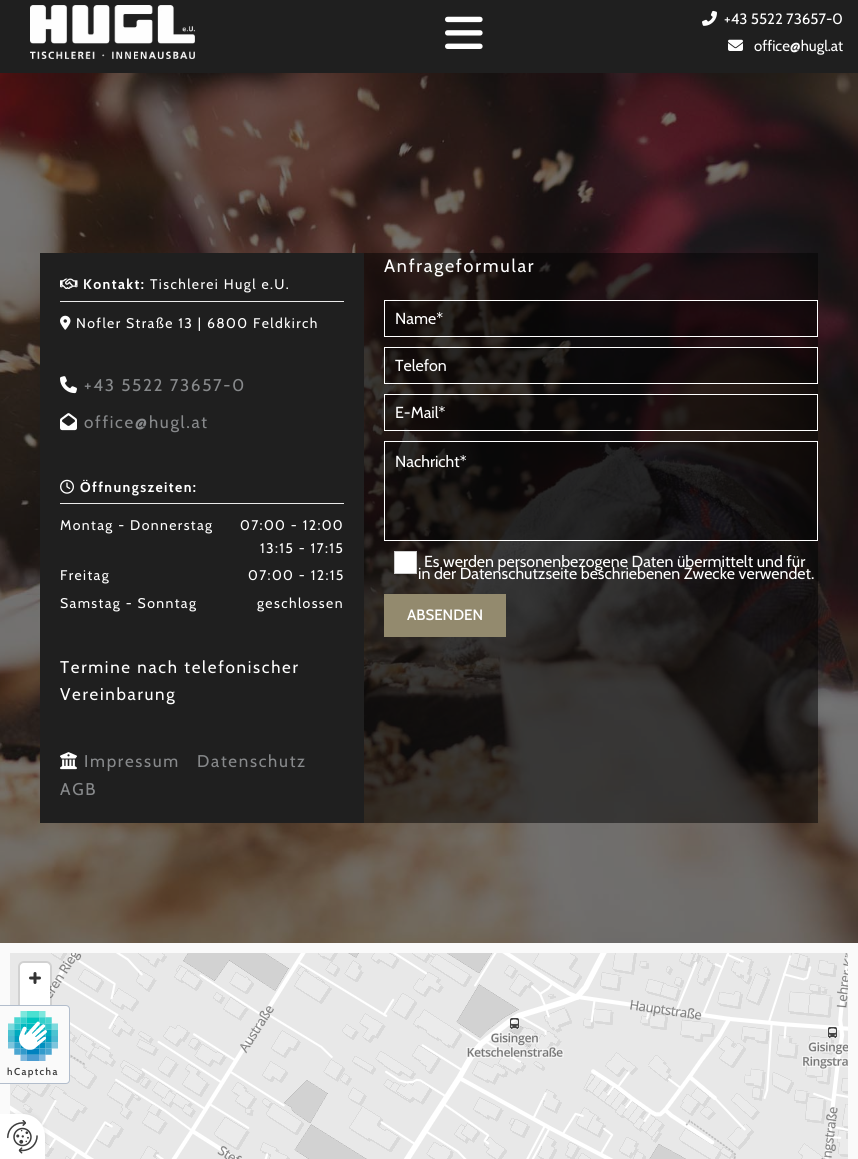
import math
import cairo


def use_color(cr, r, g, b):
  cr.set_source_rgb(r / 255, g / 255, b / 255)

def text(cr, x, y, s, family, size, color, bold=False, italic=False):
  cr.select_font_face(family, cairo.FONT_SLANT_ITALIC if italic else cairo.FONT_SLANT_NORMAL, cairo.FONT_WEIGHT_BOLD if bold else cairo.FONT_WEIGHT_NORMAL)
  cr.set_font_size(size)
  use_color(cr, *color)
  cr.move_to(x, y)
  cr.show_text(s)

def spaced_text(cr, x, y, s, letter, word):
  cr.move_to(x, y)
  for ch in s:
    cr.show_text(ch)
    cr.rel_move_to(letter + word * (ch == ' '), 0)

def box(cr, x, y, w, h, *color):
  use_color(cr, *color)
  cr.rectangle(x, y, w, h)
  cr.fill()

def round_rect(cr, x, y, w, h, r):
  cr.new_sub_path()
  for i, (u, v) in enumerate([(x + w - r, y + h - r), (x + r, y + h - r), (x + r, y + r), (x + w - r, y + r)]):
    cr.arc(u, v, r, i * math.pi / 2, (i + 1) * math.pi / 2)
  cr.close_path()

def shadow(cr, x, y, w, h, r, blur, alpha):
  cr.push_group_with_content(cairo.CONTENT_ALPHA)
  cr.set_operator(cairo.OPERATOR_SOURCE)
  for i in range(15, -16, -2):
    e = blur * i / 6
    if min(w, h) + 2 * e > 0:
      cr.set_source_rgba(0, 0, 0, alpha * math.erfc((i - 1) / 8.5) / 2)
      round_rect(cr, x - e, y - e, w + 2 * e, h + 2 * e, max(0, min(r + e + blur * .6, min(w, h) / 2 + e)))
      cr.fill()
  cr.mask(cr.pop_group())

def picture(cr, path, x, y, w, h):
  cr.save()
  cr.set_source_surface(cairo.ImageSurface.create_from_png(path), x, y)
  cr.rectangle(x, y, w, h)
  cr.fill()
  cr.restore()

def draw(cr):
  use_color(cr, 31, 31, 31)
  cr.paint()
  picture(cr, "img_01.png", 30, 5, 165, 54)
  picture(cr, "img_02.png", 445, 16, 38, 33)
  picture(cr, "img_03.png", 702, 10, 15, 16)
  picture(cr, "img_04.png", 728, 39, 15, 12)
  picture(cr, "img_05.png", 0, 73, 858, 870)
  cr.set_source_rgba(0.016, 0.016, 0.016, 0.52)
  cr.rectangle(364, 253, 454, 570)
  cr.fill()
  cr.set_source_rgba(0, 0, 0, 0.31)
  cr.rectangle(384.5, 300.5, 433, 36)
  cr.fill_preserve()
  use_color(cr, 255, 255, 255)
  cr.set_line_width(1)
  cr.stroke()
  cr.set_source_rgba(0, 0, 0, 0.31)
  cr.rectangle(384.5, 347.5, 433, 36)
  cr.fill_preserve()
  use_color(cr, 255, 255, 255)
  cr.stroke()
  cr.set_source_rgba(0, 0, 0, 0.31)
  cr.rectangle(384.5, 394.5, 433, 36)
  cr.fill_preserve()
  use_color(cr, 255, 255, 255)
  cr.stroke()
  cr.set_source_rgba(0, 0, 0, 0.31)
  cr.rectangle(384.5, 441.5, 433, 99)
  cr.fill_preserve()
  use_color(cr, 255, 255, 255)
  cr.stroke()
  cr.rectangle(394.5, 551.5, 22, 22)
  cr.fill_preserve()
  use_color(cr, 204, 204, 204)
  cr.stroke()
  box(cr, 384, 594, 122, 43, 147, 138, 110)
  box(cr, 0, 943, 858, 216, 250, 250, 250)
  picture(cr, "img_13.png", 10, 953, 838, 206)
  round_rect(cr, 19, 962, 32, 62, 5)
  cr.set_source_rgba(0, 0, 0, 0.1)
  cr.set_line_width(2)
  cr.stroke()
  use_color(cr, 255, 255, 255)
  round_rect(cr, 20, 963, 30, 60, 4)
  cr.fill()
  use_color(cr, 250, 250, 250)
  round_rect(cr, -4.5, 1005.5, 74, 78, 3.5)
  cr.fill_preserve()
  use_color(cr, 178, 189, 204)
  cr.set_line_width(1)
  cr.stroke()
  picture(cr, "img_06.png", 8, 1011, 50, 50)
  box(cr, 40, 253, 324, 570, 31, 31, 31)
  box(cr, 60, 301, 284, 1, 235, 235, 235)
  picture(cr, "img_07.png", 60, 278, 18, 11)
  picture(cr, "img_08.png", 60, 315, 11, 15)
  picture(cr, "img_09.png", 60, 376, 17, 18)
  picture(cr, "img_10.png", 60, 413, 17, 18)
  box(cr, 60, 503, 284, 1, 235, 235, 235)
  picture(cr, "img_11.png", 60, 479, 14, 15)
  picture(cr, "img_12.png", 60, 752, 17, 18)
  picture(cr, "img_14.png", 29, 972, 12, 12)
  use_color(cr, 0, 0, 0)
  shadow(cr, 0, 1114, 45, 45, 22.5, 2.5, 0.1)
  use_color(cr, 255, 255, 255)
  cr.new_path()
  cr.move_to(0, 1114)
  cr.line_to(22.5, 1114)
  cr.curve_to(35, 1114, 45, 1124, 45, 1136.5)
  cr.line_to(45, 1159)
  cr.line_to(0, 1159)
  cr.close_path()
  cr.fill()
  picture(cr, "img_15.png", 7, 1120, 31, 34)
  text(cr, 724, 24, "+43 5522 73657-0", "Cabin", 15, (255, 255, 255))
  text(cr, 754, 51, "office@hugl.at", "Cabin", 15, (255, 255, 255))
  cr.set_font_size(18)
  spaced_text(cr, 384, 272, "Anfrageformular", 1.75, 0)
  text(cr, 395, 324, "Name*", "Cabin", 16, (255, 255, 255))
  text(cr, 395, 371, "Telefon", "Cabin", 16, (255, 255, 255))
  text(cr, 395, 418, "E-Mail*", "Cabin", 16, (255, 255, 255))
  text(cr, 395, 467, "Nachricht*", "Cabin", 16, (255, 255, 255))
  text(cr, 424, 567, "Es werden personenbezogene Daten übermittelt und für", "Cabin", 16, (255, 255, 255))
  text(cr, 418, 579, "in der Datenschutzseite beschriebenen Zwecke verwendet.", "Cabin", 16, (255, 255, 255))
  text(cr, 407, 620, "ABSENDEN", "Cabin Medium", 15, (255, 255, 255))
  cr.select_font_face("Cabin SemiBold")
  cr.set_font_size(10)
  use_color(cr, 63, 63, 63)
  spaced_text(cr, 7, 1075, "hCaptcha", 1.4, 0)
  cr.select_font_face("Cabin", cairo.FONT_SLANT_NORMAL, cairo.FONT_WEIGHT_BOLD)
  cr.set_font_size(14)
  use_color(cr, 255, 255, 255)
  spaced_text(cr, 83, 289, "Kontakt:", 1.4, 0)
  cr.select_font_face("Cabin")
  spaced_text(cr, 150, 289, "Tischlerei Hugl e.U.", 1.4, 0)
  spaced_text(cr, 76, 328, "Nofler Straße 13 | 6800 Feldkirch", 1.4, 0)
  cr.set_font_size(17)
  use_color(cr, 135, 137, 139)
  spaced_text(cr, 84, 391, "+43 5522 73657-0", 1.7, 0)
  spaced_text(cr, 84, 428, "office@hugl.at", 1.7, 0)
  cr.select_font_face("Cabin", cairo.FONT_SLANT_NORMAL, cairo.FONT_WEIGHT_BOLD)
  cr.set_font_size(14)
  use_color(cr, 255, 255, 255)
  spaced_text(cr, 80, 492, "Öffnungszeiten:", 1.4, 0)
  cr.select_font_face("Cabin")
  spaced_text(cr, 60, 530, "Montag - Donnerstag", 1.4, 0)
  spaced_text(cr, 240, 530, "07:00 - 12:00", 1.4, 0)
  spaced_text(cr, 260, 553, "13:15 - 17:15", 1.4, 0)
  spaced_text(cr, 60, 580, "Freitag", 1.4, 0)
  spaced_text(cr, 248, 580, "07:00 - 12:15", 1.4, 0)
  spaced_text(cr, 60, 608, "Samstag - Sonntag", 1.4, 0)
  spaced_text(cr, 257, 608, "geschlossen", 1.4, 0)
  cr.set_font_size(17)
  spaced_text(cr, 60, 673, "Termine nach telefonischer", 1.7, 0)
  spaced_text(cr, 60, 700, "Vereinbarung", 1.7, 0)
  use_color(cr, 135, 137, 139)
  spaced_text(cr, 84, 767, "Impressum", 1.7, 0)
  spaced_text(cr, 197, 767, "Datenschutz", 1.7, 0)
  spaced_text(cr, 60, 795, "AGB", 1.7, 0)


surface = cairo.ImageSurface(cairo.FORMAT_RGB24, 858, 1159)
cr = cairo.Context(surface)
options = cairo.FontOptions()
options.set_hint_metrics(cairo.HINT_METRICS_OFF)
options.set_hint_style(cairo.HINT_STYLE_NONE)
cr.set_font_options(options)
cr.set_miter_limit(4)
draw(cr)
surface.write_to_png("out.png")
